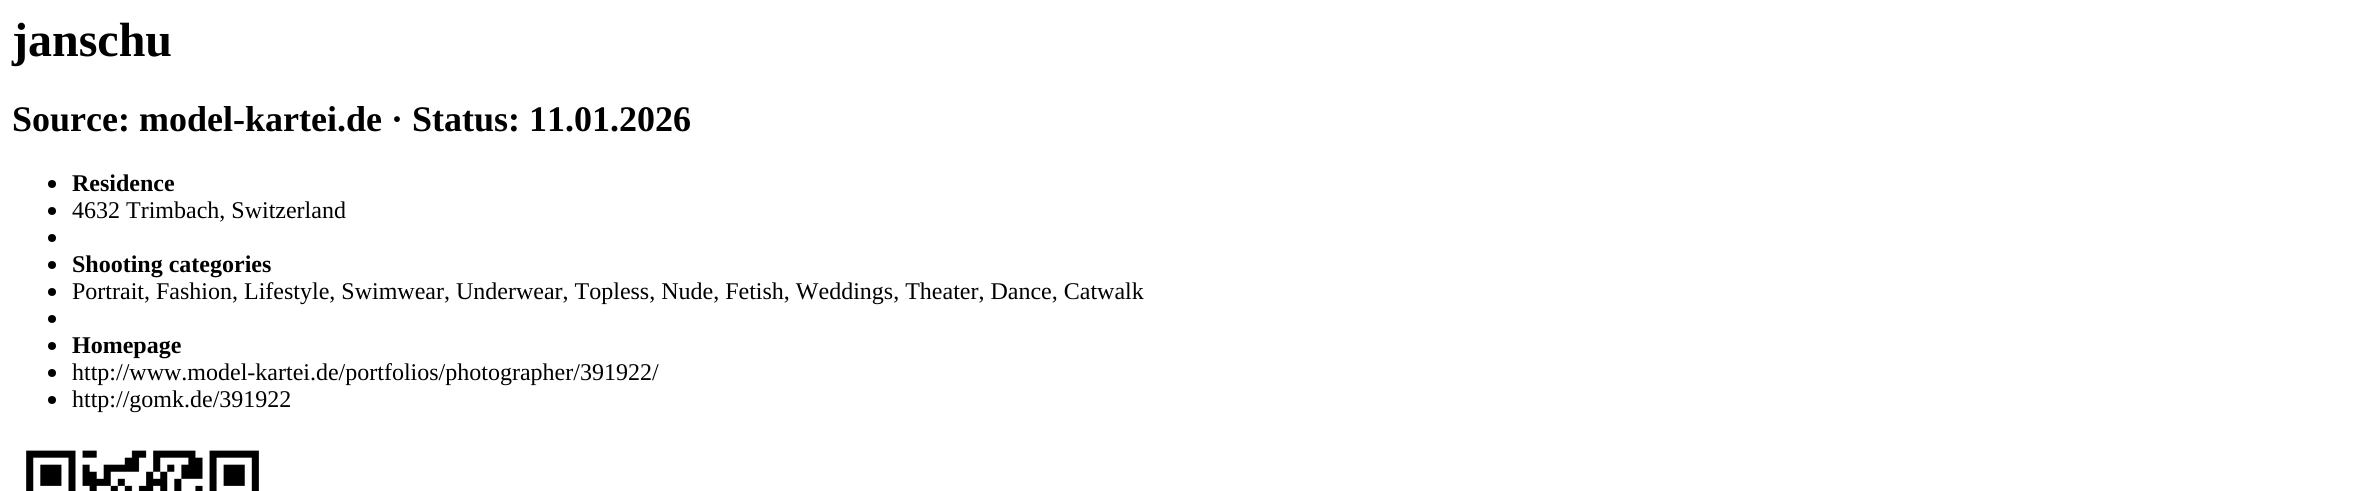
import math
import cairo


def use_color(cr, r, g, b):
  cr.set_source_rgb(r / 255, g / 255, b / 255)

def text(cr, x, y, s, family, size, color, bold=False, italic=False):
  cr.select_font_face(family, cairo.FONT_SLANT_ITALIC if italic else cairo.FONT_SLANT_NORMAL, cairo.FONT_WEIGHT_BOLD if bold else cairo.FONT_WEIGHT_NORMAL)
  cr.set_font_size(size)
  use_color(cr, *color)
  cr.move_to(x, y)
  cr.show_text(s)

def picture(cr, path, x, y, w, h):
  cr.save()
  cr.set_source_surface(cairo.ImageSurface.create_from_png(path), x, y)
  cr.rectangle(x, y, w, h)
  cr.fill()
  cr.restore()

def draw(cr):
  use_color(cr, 255, 255, 255)
  cr.paint()
  use_color(cr, 0, 0, 0)
  cr.arc(52, 184, 4, 0, 2 * math.pi)
  cr.fill()
  cr.arc(52, 211, 4, 0, 2 * math.pi)
  cr.fill()
  cr.arc(52, 238, 4, 0, 2 * math.pi)
  cr.fill()
  cr.arc(52, 265, 4, 0, 2 * math.pi)
  cr.fill()
  cr.arc(52, 292, 4, 0, 2 * math.pi)
  cr.fill()
  cr.arc(52, 319, 4, 0, 2 * math.pi)
  cr.fill()
  cr.arc(52, 346, 4, 0, 2 * math.pi)
  cr.fill()
  cr.arc(52, 373, 4, 0, 2 * math.pi)
  cr.fill()
  cr.arc(52, 400, 4, 0, 2 * math.pi)
  cr.fill()
  picture(cr, "img_01.png", 26, 450, 233, 41)
  text(cr, 12, 56, "janschu", "Liberation Serif", 48, (0, 0, 0), bold=True)
  text(cr, 12, 131, "Source: model-kartei.de · Status: 11.01.2026", "Liberation Serif", 36, (0, 0, 0), bold=True)
  text(cr, 72, 191, "Residence", "Liberation Serif", 24, (0, 0, 0), bold=True)
  text(cr, 72, 218, "4632 Trimbach, Switzerland", "Liberation Serif", 24, (0, 0, 0))
  text(cr, 72, 272, "Shooting categories", "Liberation Serif", 24, (0, 0, 0), bold=True)
  text(cr, 72, 299, "Portrait, Fashion, Lifestyle, Swimwear, Underwear, Topless, Nude, Fetish, Weddings, Theater, Dance, Catwalk", "Liberation Serif", 24, (0, 0, 0))
  text(cr, 72, 353, "Homepage", "Liberation Serif", 24, (0, 0, 0), bold=True)
  text(cr, 72, 380, "http://www.model-kartei.de/portfolios/photographer/391922/", "Liberation Serif", 24, (0, 0, 0))
  text(cr, 72, 407, "http://gomk.de/391922", "Liberation Serif", 24, (0, 0, 0))


surface = cairo.ImageSurface(cairo.FORMAT_RGB24, 2375, 491)
cr = cairo.Context(surface)
options = cairo.FontOptions()
options.set_hint_metrics(cairo.HINT_METRICS_OFF)
options.set_hint_style(cairo.HINT_STYLE_NONE)
cr.set_font_options(options)
cr.set_miter_limit(4)
draw(cr)
surface.write_to_png("out.png")
